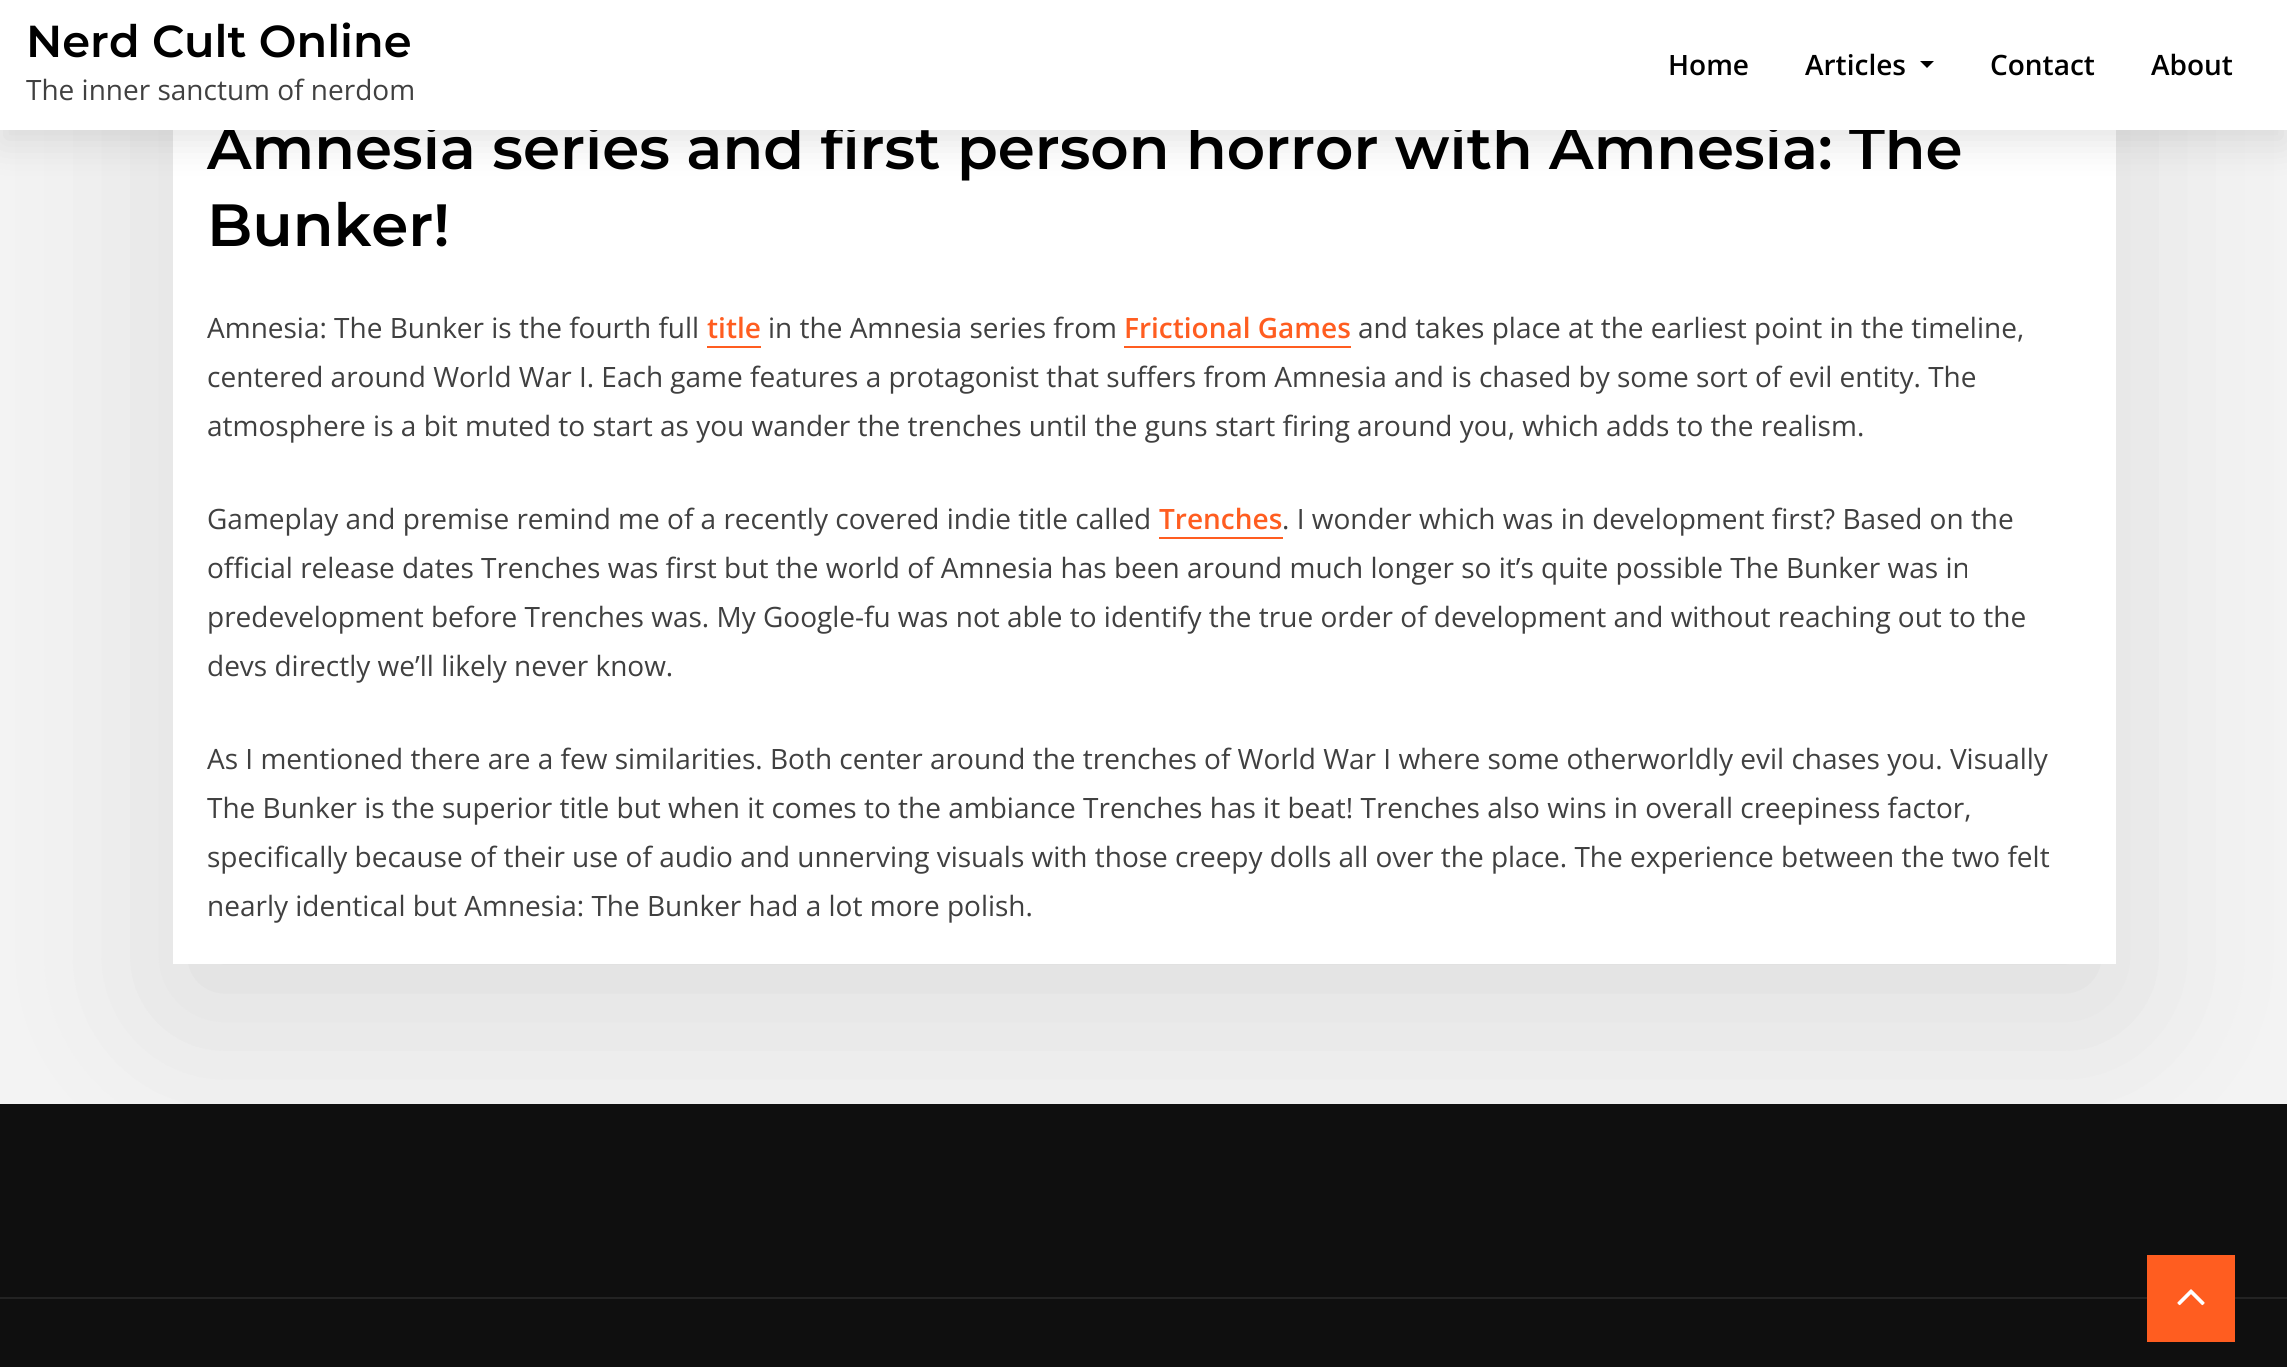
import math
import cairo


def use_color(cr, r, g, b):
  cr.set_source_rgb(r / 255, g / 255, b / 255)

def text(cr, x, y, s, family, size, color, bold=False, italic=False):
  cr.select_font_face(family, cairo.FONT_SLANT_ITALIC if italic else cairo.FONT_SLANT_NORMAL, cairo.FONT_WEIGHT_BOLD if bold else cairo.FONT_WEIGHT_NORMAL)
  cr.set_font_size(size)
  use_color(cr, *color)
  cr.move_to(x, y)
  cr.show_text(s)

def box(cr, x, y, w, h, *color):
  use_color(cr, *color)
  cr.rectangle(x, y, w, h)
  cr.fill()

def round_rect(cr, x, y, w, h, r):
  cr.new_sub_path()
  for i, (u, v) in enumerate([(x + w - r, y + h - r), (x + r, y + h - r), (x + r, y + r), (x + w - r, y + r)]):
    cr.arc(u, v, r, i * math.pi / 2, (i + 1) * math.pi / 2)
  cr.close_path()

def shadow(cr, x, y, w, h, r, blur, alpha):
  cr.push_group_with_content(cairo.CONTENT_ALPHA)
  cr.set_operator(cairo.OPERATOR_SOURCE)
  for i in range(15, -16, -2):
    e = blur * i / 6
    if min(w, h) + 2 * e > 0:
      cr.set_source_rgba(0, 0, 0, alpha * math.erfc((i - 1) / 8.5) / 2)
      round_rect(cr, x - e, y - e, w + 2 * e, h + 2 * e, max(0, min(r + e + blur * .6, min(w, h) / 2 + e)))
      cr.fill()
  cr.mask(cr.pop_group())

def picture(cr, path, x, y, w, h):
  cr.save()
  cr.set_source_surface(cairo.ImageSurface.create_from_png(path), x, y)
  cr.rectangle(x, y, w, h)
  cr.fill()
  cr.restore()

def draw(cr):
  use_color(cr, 243, 243, 243)
  cr.paint()
  use_color(cr, 0, 0, 0)
  shadow(cr, 173, -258, 1943, 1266, 0, 86, 0.1)
  box(cr, 173, 130, 1943, 834, 255, 255, 255)
  use_color(cr, 0, 0, 0)
  shadow(cr, 0, 14, 2287, 130, 0, 17.5, 0.1)
  box(cr, 707, 346, 54, 2, 255, 93, 32)
  box(cr, 1124, 346, 227, 2, 255, 93, 32)
  cr.new_path()
  cr.move_to(1159, 537)
  cr.line_to(1159, 539)
  cr.line_to(1283, 539)
  cr.line_to(1283, 501)
  cr.line_to(1283, 537)
  cr.close_path()
  cr.fill()
  box(cr, 0, 1104, 2287, 263, 15, 15, 15)
  box(cr, 0, 1297, 2287, 2, 35, 35, 35)
  box(cr, 2147, 1255, 88, 87, 255, 93, 32)
  picture(cr, "img_01.png", 2177, 1289, 28, 17)
  text(cr, 207, 169, "Amnesia series and first person horror with Amnesia: The", "Montserrat SemiBold", 59.5, (0, 0, 0))
  box(cr, 0, 0, 2287, 130, 255, 255, 255)
  use_color(cr, 0, 0, 0)
  cr.new_path()
  cr.move_to(1920, 61)
  cr.line_to(1934, 61)
  cr.line_to(1927, 68)
  cr.close_path()
  cr.fill()
  text(cr, 1805, 75, "Articles", "Open Sans SemiBold", 28, (0, 0, 0))
  text(cr, 2151, 75, "About", "Open Sans SemiBold", 28, (0, 0, 0))
  text(cr, 1990, 75, "Contact", "Open Sans SemiBold", 28, (0, 0, 0))
  text(cr, 1668, 75, "Home", "Open Sans SemiBold", 28, (0, 0, 0))
  text(cr, 26, 100, "The inner sanctum of nerdom", "Open Sans", 28, (64, 64, 64))
  text(cr, 26, 57, "Nerd Cult Online", "Montserrat SemiBold", 44.75, (0, 0, 0))
  text(cr, 207, 246, "Bunker!", "Montserrat SemiBold", 59.5, (0, 0, 0))
  text(cr, 207, 338, "Amnesia: The Bunker is the fourth full", "Open Sans", 28, (64, 64, 64))
  text(cr, 707, 338, "title", "Open Sans SemiBold", 28, (255, 93, 32))
  text(cr, 768, 338, "in the Amnesia series from", "Open Sans", 28, (64, 64, 64))
  text(cr, 1124, 338, "Frictional Games", "Open Sans SemiBold", 28, (255, 93, 32))
  text(cr, 1358, 338, "and takes place at the earliest point in the timeline,", "Open Sans", 28, (64, 64, 64))
  text(cr, 207, 387, "centered around World War I. Each game features a protagonist that suffers from Amnesia and is chased by some sort of evil entity. The", "Open Sans", 28, (64, 64, 64))
  text(cr, 207, 436, "atmosphere is a bit muted to start as you wander the trenches until the guns start firing around you, which adds to the realism.", "Open Sans", 28, (64, 64, 64))
  text(cr, 207, 529, "Gameplay and premise remind me of a recently covered indie title called", "Open Sans", 28, (64, 64, 64))
  text(cr, 1159, 529, "Trenches", "Open Sans SemiBold", 28, (255, 93, 32))
  text(cr, 1282, 529, ". I wonder which was in development first? Based on the", "Open Sans", 28, (64, 64, 64))
  text(cr, 207, 578, "official release dates Trenches was first but the world of Amnesia has been around much longer so it’s quite possible The Bunker was in", "Open Sans", 28, (64, 64, 64))
  text(cr, 207, 627, "predevelopment before Trenches was. My Google-fu was not able to identify the true order of development and without reaching out to the", "Open Sans", 28, (64, 64, 64))
  text(cr, 207, 676, "devs directly we’ll likely never know.", "Open Sans", 28, (64, 64, 64))
  text(cr, 207, 769, "As I mentioned there are a few similarities. Both center around the trenches of World War I where some otherworldly evil chases you. Visually", "Open Sans", 28, (64, 64, 64))
  text(cr, 207, 818, "The Bunker is the superior title but when it comes to the ambiance Trenches has it beat! Trenches also wins in overall creepiness factor,", "Open Sans", 28, (64, 64, 64))
  text(cr, 207, 867, "specifically because of their use of audio and unnerving visuals with those creepy dolls all over the place. The experience between the two felt", "Open Sans", 28, (64, 64, 64))
  text(cr, 207, 916, "nearly identical but Amnesia: The Bunker had a lot more polish.", "Open Sans", 28, (64, 64, 64))


surface = cairo.ImageSurface(cairo.FORMAT_RGB24, 2287, 1367)
cr = cairo.Context(surface)
options = cairo.FontOptions()
options.set_hint_metrics(cairo.HINT_METRICS_OFF)
options.set_hint_style(cairo.HINT_STYLE_NONE)
cr.set_font_options(options)
cr.set_miter_limit(4)
draw(cr)
surface.write_to_png("out.png")
